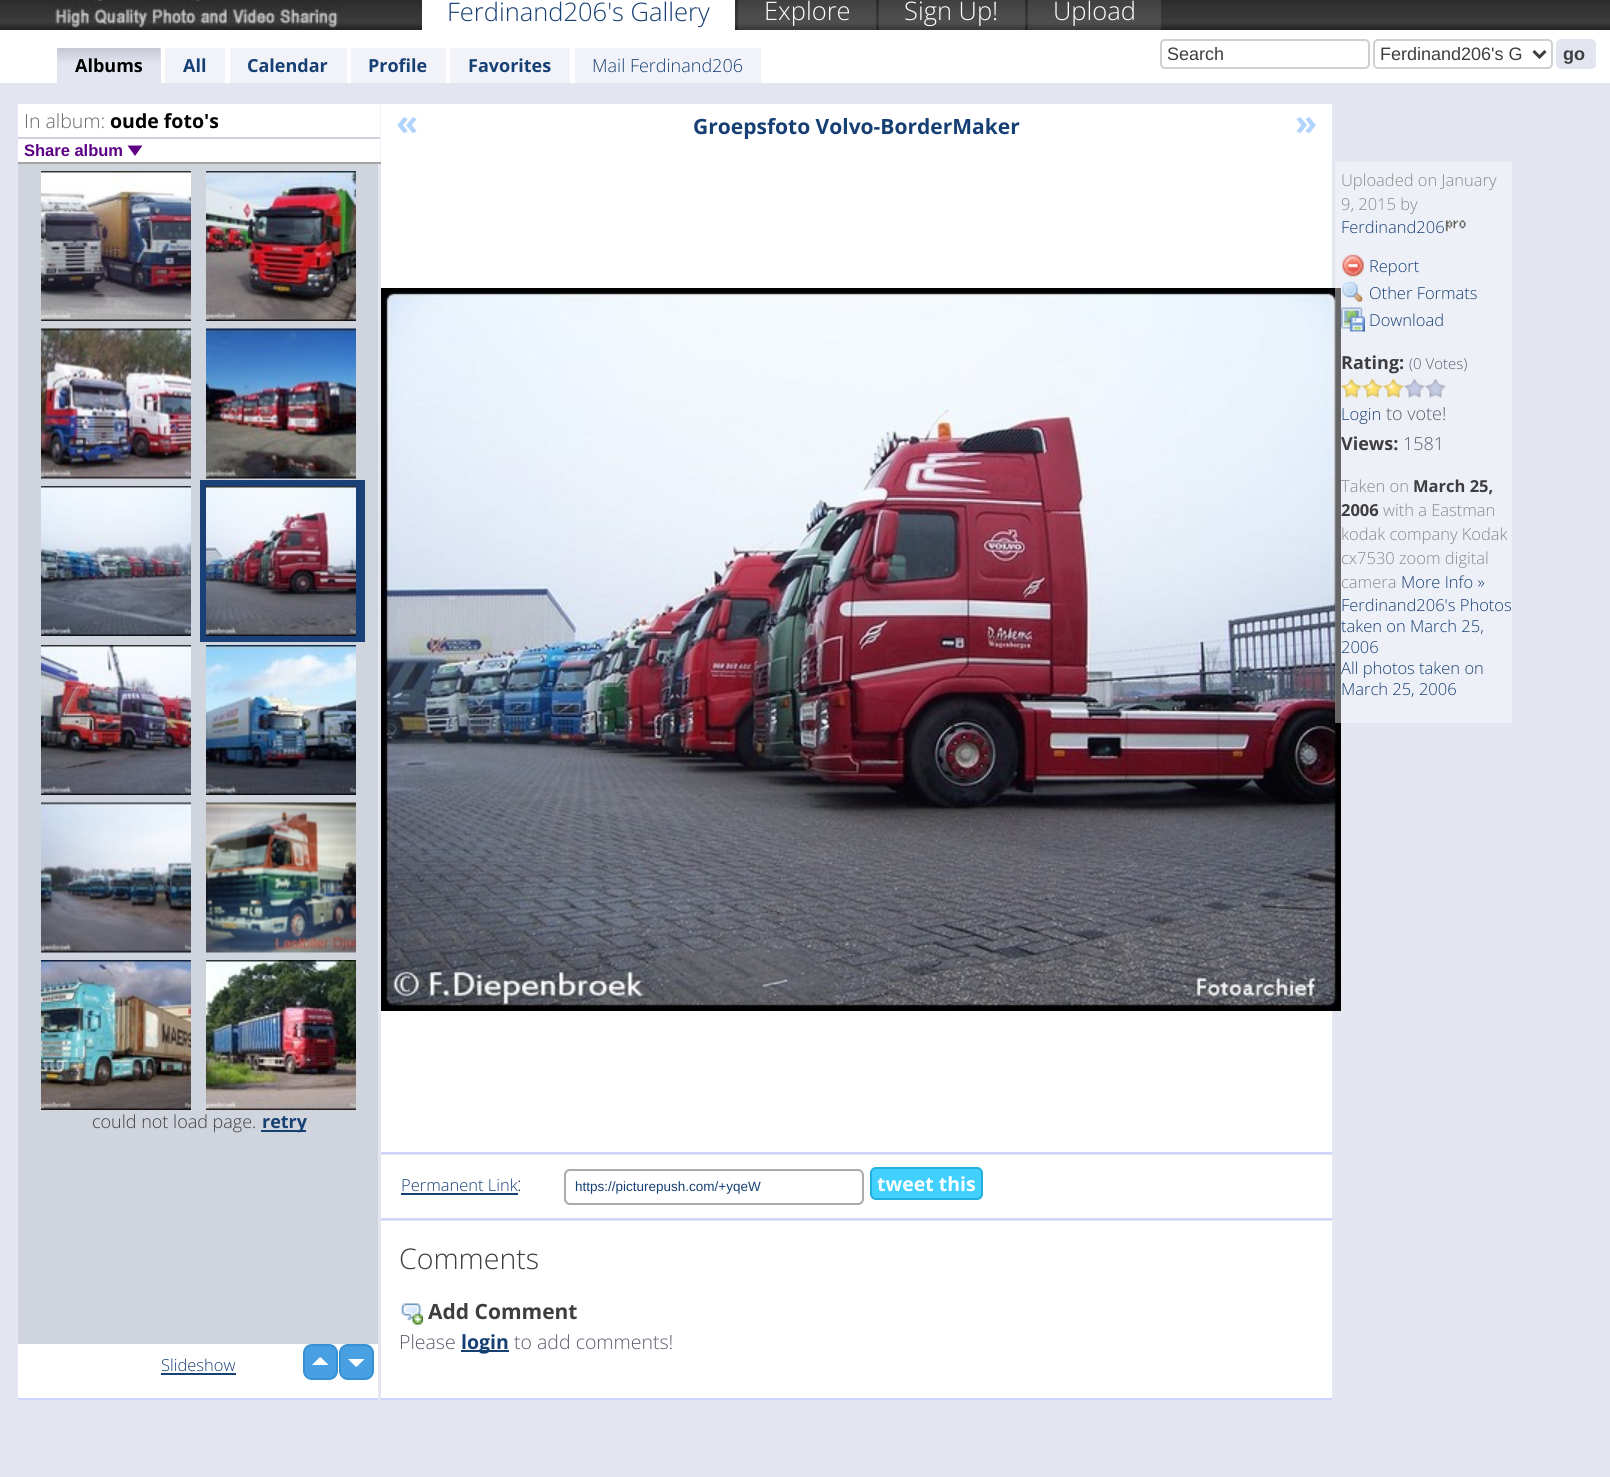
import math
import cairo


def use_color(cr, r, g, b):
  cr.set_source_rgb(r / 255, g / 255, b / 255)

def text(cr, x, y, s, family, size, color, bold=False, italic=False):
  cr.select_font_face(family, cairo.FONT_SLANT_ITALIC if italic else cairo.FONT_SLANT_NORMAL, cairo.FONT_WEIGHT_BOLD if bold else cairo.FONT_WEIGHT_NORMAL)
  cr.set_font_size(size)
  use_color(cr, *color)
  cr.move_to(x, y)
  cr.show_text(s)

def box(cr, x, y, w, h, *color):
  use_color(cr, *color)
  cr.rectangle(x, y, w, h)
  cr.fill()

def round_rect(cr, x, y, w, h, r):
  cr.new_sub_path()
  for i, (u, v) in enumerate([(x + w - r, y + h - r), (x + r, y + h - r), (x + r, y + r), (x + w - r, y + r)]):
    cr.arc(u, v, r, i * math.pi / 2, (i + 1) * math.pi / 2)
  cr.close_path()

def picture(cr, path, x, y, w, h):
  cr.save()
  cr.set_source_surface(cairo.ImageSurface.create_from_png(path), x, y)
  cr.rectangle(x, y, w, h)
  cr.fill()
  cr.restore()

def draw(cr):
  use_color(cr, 227, 230, 241)
  cr.paint()
  picture(cr, "img_01.png", 0, 0, 1610, 30)
  picture(cr, "img_02.png", 55, 0, 287, 30)
  box(cr, 422, 0, 313, 30, 255, 255, 255)
  cr.set_source_rgba(1, 1, 1, 0.1)
  cr.rectangle(738, 0, 138, 30)
  cr.fill()
  cr.rectangle(879, 0, 146, 30)
  cr.fill()
  cr.rectangle(1028, 0, 133, 30)
  cr.fill()
  box(cr, 0, 30, 1610, 53, 255, 255, 255)
  round_rect(cr, 1161, 40, 208, 28, 4)
  use_color(cr, 208, 208, 208)
  cr.stroke()
  round_rect(cr, 1374, 40, 178, 28, 4)
  cr.stroke()
  cr.new_path()
  cr.move_to(1533.5, 51)
  cr.line_to(1539.5, 57)
  cr.line_to(1545.5, 51)
  use_color(cr, 62, 62, 62)
  cr.set_line_width(3)
  cr.stroke()
  use_color(cr, 227, 230, 241)
  round_rect(cr, 1557, 40, 38, 28, 4)
  cr.fill_preserve()
  cr.set_line_width(2)
  cr.stroke()
  box(cr, 57, 48, 104, 35, 227, 230, 241)
  picture(cr, "img_03.png", 57, 48, 104, 14)
  box(cr, 165, 48, 60, 35, 241, 243, 249)
  box(cr, 230, 48, 117, 35, 241, 243, 249)
  box(cr, 351, 48, 95, 35, 241, 243, 249)
  box(cr, 450, 48, 120, 35, 241, 243, 249)
  box(cr, 575, 48, 186, 35, 241, 243, 249)
  box(cr, 18, 104, 362, 58, 255, 255, 255)
  box(cr, 380, 104, 1, 60, 243, 243, 243)
  box(cr, 18, 162, 363, 2, 164, 164, 164)
  box(cr, 18, 137, 362, 2, 208, 208, 224)
  use_color(cr, 94, 0, 133)
  cr.new_path()
  cr.move_to(127.5, 145.5)
  cr.line_to(142.5, 145.5)
  cr.line_to(135, 156)
  cr.close_path()
  cr.fill()
  box(cr, 18, 164, 360, 1180, 208, 213, 221)
  box(cr, 18, 1398, 360, 2, 207, 212, 255)
  picture(cr, "img_04.png", 41, 171, 150, 150)
  picture(cr, "img_05.png", 206, 171, 150, 150)
  picture(cr, "img_06.png", 41, 328, 150, 151)
  picture(cr, "img_07.png", 206, 328, 150, 151)
  picture(cr, "img_08.png", 41, 486, 150, 150)
  box(cr, 200, 480, 165, 162, 25, 64, 119)
  picture(cr, "img_09.png", 206, 486, 150, 150)
  picture(cr, "img_10.png", 41, 645, 150, 150)
  picture(cr, "img_11.png", 206, 645, 150, 150)
  picture(cr, "img_12.png", 41, 802, 150, 151)
  picture(cr, "img_13.png", 206, 802, 150, 151)
  picture(cr, "img_14.png", 41, 960, 150, 150)
  picture(cr, "img_15.png", 206, 960, 150, 150)
  box(cr, 261, 1130, 45, 2, 22, 63, 115)
  box(cr, 18, 1344, 360, 54, 255, 255, 255)
  use_color(cr, 72, 160, 227)
  round_rect(cr, 304, 1345, 33, 34, 8)
  cr.fill_preserve()
  use_color(cr, 56, 144, 211)
  cr.stroke()
  use_color(cr, 72, 160, 227)
  round_rect(cr, 340, 1345, 33, 34, 8)
  cr.fill_preserve()
  use_color(cr, 56, 144, 211)
  cr.stroke()
  use_color(cr, 255, 255, 255)
  cr.new_path()
  cr.move_to(328.5, 1365)
  cr.line_to(312, 1365)
  cr.line_to(319.5, 1357.5)
  cr.line_to(321, 1357.5)
  cr.close_path()
  cr.move_to(348, 1359)
  cr.line_to(364.5, 1359)
  cr.line_to(357, 1366.5)
  cr.line_to(355.5, 1366.5)
  cr.close_path()
  cr.fill()
  box(cr, 161, 1373, 75, 2, 22, 63, 115)
  box(cr, 381, 104, 951, 1048, 255, 255, 255)
  box(cr, 381, 1152, 951, 2, 207, 212, 255)
  picture(cr, "img_16.png", 381, 288, 960, 723)
  cr.set_source_rgba(1, 1, 1, 0.4)
  cr.rectangle(1335, 162, 177, 561)
  cr.fill()
  picture(cr, "img_17.png", 1445, 220, 22, 12)
  picture(cr, "img_18.png", 1342, 254, 22, 23)
  picture(cr, "img_19.png", 1342, 281, 21, 22)
  picture(cr, "img_20.png", 1341, 307, 24, 25)
  picture(cr, "img_21.png", 1341, 378, 21, 20)
  picture(cr, "img_21.png", 1362, 378, 21, 20)
  picture(cr, "img_22.png", 1383, 378, 21, 20)
  picture(cr, "img_23.png", 1404, 378, 21, 20)
  picture(cr, "img_23.png", 1425, 378, 21, 20)
  box(cr, 381, 1155, 951, 63, 255, 255, 255)
  box(cr, 381, 1218, 951, 2, 207, 212, 255)
  box(cr, 401, 1193, 117, 2, 22, 63, 115)
  round_rect(cr, 565, 1170, 298, 34, 5)
  use_color(cr, 170, 170, 170)
  cr.stroke()
  use_color(cr, 66, 208, 255)
  round_rect(cr, 871, 1168, 111, 31, 5)
  cr.fill_preserve()
  use_color(cr, 34, 176, 223)
  cr.stroke()
  box(cr, 381, 1221, 951, 177, 255, 255, 255)
  box(cr, 381, 1398, 951, 2, 207, 212, 255)
  picture(cr, "img_24.png", 400, 1303, 23, 22)
  box(cr, 461, 1350, 48, 2, 22, 63, 115)
  text(cr, 447, 21, "Ferdinand206's Gallery", "Open Sans Light", 25.5, (22, 63, 115))
  text(cr, 764, 20, "Explore", "Open Sans Light", 25.5, (255, 255, 255))
  text(cr, 904, 20, "Sign Up!", "Open Sans Light", 25.5, (255, 255, 255))
  text(cr, 1053, 20, "Upload", "Open Sans Light", 25.5, (255, 255, 255))
  text(cr, 1167, 60, "Search", "Liberation Sans", 18, (62, 62, 65))
  text(cr, 1380, 60, "Ferdinand206's G", "Liberation Sans", 18, (62, 62, 65))
  text(cr, 1563, 60, "go", "Liberation Sans", 18, (62, 62, 65), bold=True)
  text(cr, 75, 72, "Albums", "Open Sans", 18, (0, 0, 0), bold=True)
  text(cr, 183, 72, "All", "Open Sans", 18, (22, 63, 115), bold=True)
  text(cr, 247, 72, "Calendar", "Open Sans", 18, (22, 63, 115), bold=True)
  text(cr, 368, 72, "Profile", "Open Sans", 18, (22, 63, 115), bold=True)
  text(cr, 468, 72, "Favorites", "Open Sans", 18, (22, 63, 115), bold=True)
  text(cr, 592, 72, "Mail Ferdinand206", "Open Sans Light", 18, (22, 63, 115))
  text(cr, 24, 128, "In album:", "Open Sans Light", 19.5, (102, 102, 102))
  text(cr, 110, 128, "oude foto's", "Open Sans", 19.5, (0, 0, 0), bold=True)
  text(cr, 24, 156, "Share album", "Liberation Sans", 16.5, (94, 0, 133), bold=True)
  text(cr, 92, 1128, "could not load page.", "Open Sans Light", 18, (62, 62, 65))
  text(cr, 262, 1128, "retry", "Open Sans", 18, (22, 63, 115), bold=True)
  text(cr, 161, 1371, "Slideshow", "Open Sans Light", 16.5, (22, 63, 115))
  text(cr, 396, 135, "«", "Open Sans", 36, (176, 212, 254), bold=True)
  text(cr, 693, 134, "Groepsfoto Volvo-BorderMaker", "Open Sans", 21, (22, 63, 115), bold=True)
  text(cr, 1295, 135, "»", "Open Sans", 36, (176, 212, 254), bold=True)
  text(cr, 1341, 186, "Uploaded on January", "Open Sans Light", 16.5, (136, 136, 136))
  text(cr, 1341, 210, "9, 2015 by", "Open Sans Light", 16.5, (136, 136, 136))
  text(cr, 1341, 233, "Ferdinand206", "Open Sans Light", 16.5, (22, 63, 115))
  text(cr, 1369, 272, "Report", "Open Sans Light", 16.5, (22, 63, 115))
  text(cr, 1369, 299, "Other Formats", "Open Sans Light", 16.5, (22, 63, 115))
  text(cr, 1369, 326, "Download", "Open Sans Light", 16.5, (22, 63, 115))
  text(cr, 1341, 369, "Rating:", "Open Sans", 18, (62, 62, 65), bold=True)
  text(cr, 1409, 369, "(0 Votes)", "Open Sans Light", 15, (90, 92, 108))
  text(cr, 1341, 420, "Login", "Open Sans Light", 16.5, (22, 63, 115))
  text(cr, 1386, 420, "to vote!", "Open Sans Light", 18, (90, 92, 108))
  text(cr, 1341, 450, "Views:", "Open Sans", 18, (62, 62, 65), bold=True)
  text(cr, 1403, 450, "1581", "Open Sans Light", 18, (90, 92, 108))
  text(cr, 1341, 492, "Taken on", "Open Sans Light", 16.5, (136, 136, 136))
  text(cr, 1413, 492, "March 25,", "Open Sans", 16.5, (62, 62, 65), bold=True)
  text(cr, 1341, 516, "2006", "Open Sans", 16.5, (62, 62, 65), bold=True)
  text(cr, 1383, 516, "with a Eastman", "Open Sans Light", 16.5, (136, 136, 136))
  text(cr, 1341, 540, "kodak company Kodak", "Open Sans Light", 16.5, (136, 136, 136))
  text(cr, 1341, 564, "cx7530 zoom digital", "Open Sans Light", 16.5, (136, 136, 136))
  text(cr, 1341, 588, "camera", "Open Sans Light", 16.5, (136, 136, 136))
  text(cr, 1401, 588, "More Info »", "Open Sans Light", 16.5, (22, 63, 115))
  text(cr, 1341, 611, "Ferdinand206's Photos", "Open Sans Light", 16.5, (22, 63, 115))
  text(cr, 1341, 632, "taken on March 25,", "Open Sans Light", 16.5, (22, 63, 115))
  text(cr, 1341, 653, "2006", "Open Sans Light", 16.5, (22, 63, 115))
  text(cr, 1341, 674, "All photos taken on", "Open Sans Light", 16.5, (22, 63, 115))
  text(cr, 1341, 695, "March 25, 2006", "Open Sans Light", 16.5, (22, 63, 115))
  text(cr, 401, 1191, "Permanent Link", "Open Sans Light", 16.5, (22, 63, 115))
  text(cr, 517, 1191, ":", "Open Sans Light", 19.5, (62, 62, 65))
  text(cr, 575, 1191, "https://picturepush.com/+yqeW", "Liberation Sans", 13.5, (22, 63, 115))
  text(cr, 877, 1191, "tweet this", "Open Sans", 19.5, (255, 255, 255), bold=True)
  text(cr, 399, 1269, "Comments", "Open Sans Light", 28.5, (62, 62, 65))
  text(cr, 428, 1319, "Add Comment", "Open Sans", 21, (62, 62, 65), bold=True)
  text(cr, 399, 1349, "Please", "Open Sans Light", 19.5, (90, 92, 108))
  text(cr, 461, 1349, "login", "Open Sans", 19.5, (22, 63, 115), bold=True)
  text(cr, 514, 1349, "to add comments!", "Open Sans Light", 19.5, (90, 92, 108))


surface = cairo.ImageSurface(cairo.FORMAT_RGB24, 1610, 1477)
cr = cairo.Context(surface)
options = cairo.FontOptions()
options.set_hint_metrics(cairo.HINT_METRICS_OFF)
options.set_hint_style(cairo.HINT_STYLE_NONE)
cr.set_font_options(options)
cr.set_miter_limit(4)
draw(cr)
surface.write_to_png("out.png")
